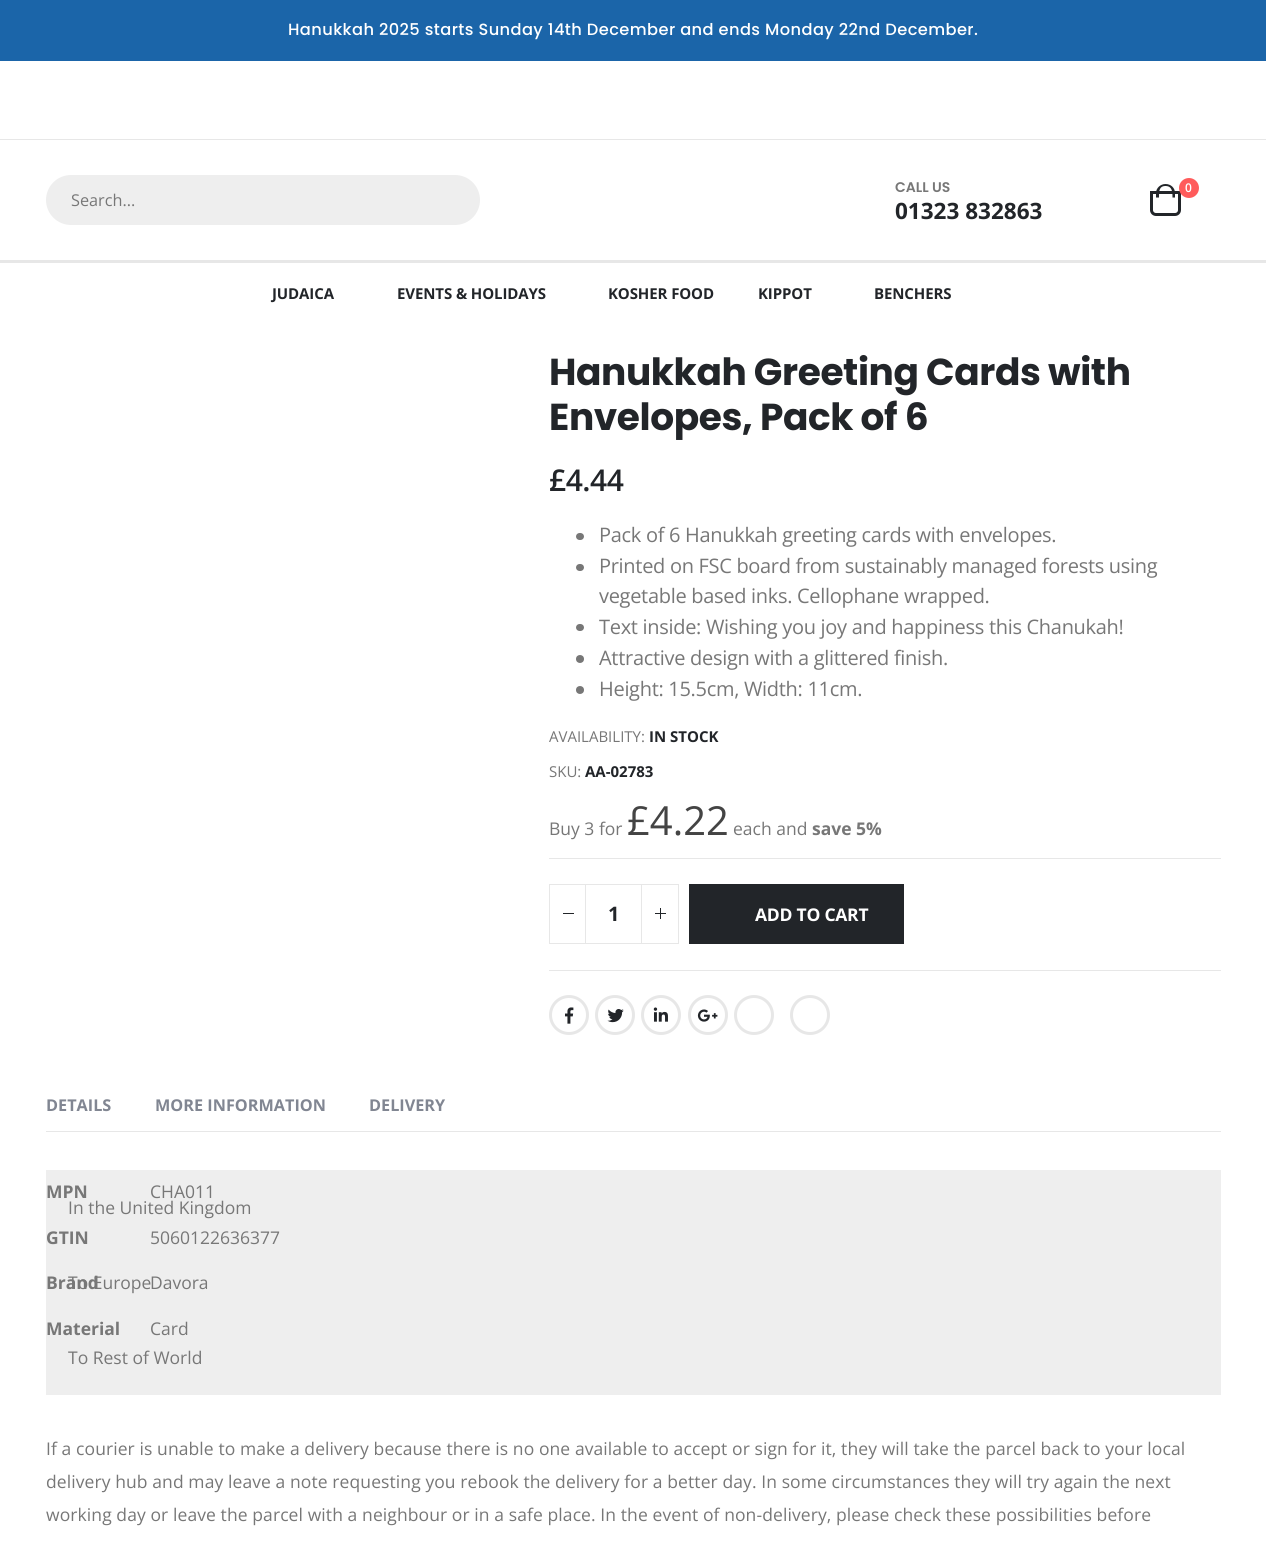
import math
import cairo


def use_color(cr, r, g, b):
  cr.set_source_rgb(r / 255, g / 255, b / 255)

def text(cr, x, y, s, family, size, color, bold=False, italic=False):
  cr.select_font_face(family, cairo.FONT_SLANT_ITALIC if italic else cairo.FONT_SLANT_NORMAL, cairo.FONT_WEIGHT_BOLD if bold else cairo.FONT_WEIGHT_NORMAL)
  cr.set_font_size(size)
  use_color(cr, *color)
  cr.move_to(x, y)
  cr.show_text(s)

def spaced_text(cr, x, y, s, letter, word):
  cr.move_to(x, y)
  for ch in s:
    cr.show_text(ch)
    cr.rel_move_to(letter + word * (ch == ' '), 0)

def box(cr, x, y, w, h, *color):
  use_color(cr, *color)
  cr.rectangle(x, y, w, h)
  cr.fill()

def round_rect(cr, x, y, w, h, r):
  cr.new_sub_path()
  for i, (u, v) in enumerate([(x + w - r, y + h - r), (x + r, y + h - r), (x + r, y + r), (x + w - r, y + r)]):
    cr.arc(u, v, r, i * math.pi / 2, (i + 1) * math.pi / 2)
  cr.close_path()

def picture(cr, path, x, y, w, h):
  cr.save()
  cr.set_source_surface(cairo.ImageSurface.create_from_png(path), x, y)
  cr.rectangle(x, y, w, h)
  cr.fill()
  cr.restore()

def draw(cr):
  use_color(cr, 255, 255, 255)
  cr.paint()
  box(cr, 0, 0, 1266, 61, 27, 101, 169)
  box(cr, 0, 139, 1266, 1, 231, 231, 231)
  use_color(cr, 238, 238, 238)
  round_rect(cr, 46, 175, 434, 50, 25)
  cr.fill()
  cr.new_path()
  cr.move_to(1151.5, 192.5)
  cr.line_to(1179.5, 192.5)
  cr.line_to(1179.5, 210)
  cr.curve_to(1179.5, 212.5, 1177.5, 214.5, 1175, 214.5)
  cr.line_to(1156, 214.5)
  cr.curve_to(1153.5, 214.5, 1151.5, 212.5, 1151.5, 210)
  cr.close_path()
  use_color(cr, 34, 37, 41)
  cr.set_line_width(3)
  cr.stroke()
  cr.set_fill_rule(cairo.FILL_RULE_EVEN_ODD)
  cr.new_path()
  cr.move_to(1165.5, 184)
  cr.curve_to(1171, 184, 1175, 188, 1175, 193)
  cr.line_to(1175, 197.5)
  cr.line_to(1156, 197.5)
  cr.line_to(1156, 193)
  cr.curve_to(1156, 188, 1160.5, 184, 1165.5, 184)
  cr.close_path()
  cr.move_to(1165.5, 186)
  cr.curve_to(1172.5, 186, 1172.5, 192.5, 1172.5, 197.5)
  cr.line_to(1159, 197.5)
  cr.curve_to(1159, 192.5, 1158.5, 186, 1165.5, 186)
  cr.close_path()
  cr.fill()
  use_color(cr, 255, 91, 91)
  cr.arc(1189, 188, 10, 0, 2 * math.pi)
  cr.fill()
  box(cr, 0, 260, 1266, 3, 231, 231, 231)
  use_color(cr, 119, 119, 119)
  round_rect(cr, 576, 533, 8, 7, 3.5)
  cr.fill()
  round_rect(cr, 576, 564, 8, 7, 3.5)
  cr.fill()
  round_rect(cr, 576, 624, 8, 7, 3.5)
  cr.fill()
  cr.arc(580, 659, 4, 0, 2 * math.pi)
  cr.fill()
  cr.arc(580, 690, 4, 0, 2 * math.pi)
  cr.fill()
  box(cr, 549, 858, 672, 1, 231, 231, 231)
  box(cr, 549, 970, 672, 1, 231, 231, 231)
  cr.rectangle(549.5, 884.5, 36, 59)
  cr.set_line_width(1)
  cr.stroke()
  box(cr, 563, 913, 11, 1, 34, 37, 41)
  cr.rectangle(641.5, 884.5, 37, 59)
  use_color(cr, 231, 231, 231)
  cr.stroke()
  box(cr, 655, 913, 11, 1, 34, 37, 41)
  box(cr, 660, 908, 1, 11, 34, 37, 41)
  box(cr, 586, 884, 55, 1, 231, 231, 231)
  box(cr, 586, 943, 55, 1, 231, 231, 231)
  box(cr, 689, 884, 215, 60, 34, 37, 41)
  cr.arc(569, 1015, 18.5, 0, 2 * math.pi)
  use_color(cr, 231, 231, 231)
  cr.set_line_width(3)
  cr.stroke()
  picture(cr, "img_01.png", 565, 1007, 9, 17)
  cr.arc(615, 1015, 18.5, 0, 2 * math.pi)
  cr.stroke()
  picture(cr, "img_02.png", 607, 1009, 17, 14)
  cr.arc(661, 1015, 18.5, 0, 2 * math.pi)
  cr.stroke()
  picture(cr, "img_03.png", 653, 1007, 15, 15)
  cr.arc(708, 1015, 18.5, 0, 2 * math.pi)
  cr.stroke()
  picture(cr, "img_04.png", 697, 1009, 21, 13)
  cr.arc(754, 1015, 18.5, 0, 2 * math.pi)
  cr.stroke()
  cr.arc(810, 1015, 18.5, 0, 2 * math.pi)
  cr.stroke()
  box(cr, 46, 1131, 1175, 1, 231, 231, 231)
  box(cr, 46, 1170, 1175, 225, 238, 238, 238)
  cr.select_font_face("Poppins Medium")
  cr.set_font_size(16.25)
  use_color(cr, 255, 255, 255)
  spaced_text(cr, 288, 35, "Hanukkah 2025 starts Sunday 14th December and ends Monday 22nd December.", 0.4, 0)
  text(cr, 71, 206, "Search...", "Open Sans", 16.25, (119, 119, 119))
  text(cr, 895, 192, "CALL US", "Poppins SemiBold", 14, (119, 119, 119))
  text(cr, 895, 219, "01323 832863", "Open Sans", 22.5, (34, 37, 41), bold=True)
  text(cr, 1185, 192, "0", "Open Sans SemiBold", 12, (255, 255, 255))
  cr.select_font_face("Open Sans", cairo.FONT_SLANT_NORMAL, cairo.FONT_WEIGHT_BOLD)
  cr.set_font_size(15)
  use_color(cr, 34, 37, 41)
  spaced_text(cr, 272, 299, "JUDAICA", -0.1, 0)
  spaced_text(cr, 397, 299, "EVENTS & HOLIDAYS", -0.1, 0)
  spaced_text(cr, 608, 299, "KOSHER FOOD", -0.1, 0)
  spaced_text(cr, 758, 299, "KIPPOT", -0.1, 0)
  spaced_text(cr, 874, 299, "BENCHERS", -0.1, 0)
  cr.select_font_face("Poppins", cairo.FONT_SLANT_NORMAL, cairo.FONT_WEIGHT_BOLD)
  cr.set_font_size(37.5)
  spaced_text(cr, 549, 385, "Hanukkah Greeting Cards with", -0.4, 0)
  spaced_text(cr, 549, 430, "Envelopes, Pack of 6", -0.4, 0)
  cr.select_font_face("Open Sans SemiBold")
  cr.set_font_size(30)
  spaced_text(cr, 549, 491, "£4.44", -0.5, 0)
  cr.select_font_face("Open Sans")
  cr.set_font_size(20)
  use_color(cr, 119, 119, 119)
  spaced_text(cr, 599, 542, "Pack of 6 Hanukkah greeting cards with envelopes.", -0.3, 0)
  spaced_text(cr, 599, 573, "Printed on FSC board from sustainably managed forests using", -0.3, 0)
  spaced_text(cr, 599, 603, "vegetable based inks. Cellophane wrapped.", -0.3, 0)
  spaced_text(cr, 599, 634, "Text inside: Wishing you joy and happiness this Chanukah!", -0.3, 0)
  spaced_text(cr, 599, 665, "Attractive design with a glittered finish.", -0.3, 0)
  spaced_text(cr, 599, 696, "Height: 15.5cm, Width: 11cm.", -0.3, 0)
  text(cr, 549, 742, "AVAILABILITY:", "Open Sans", 15, (119, 119, 119))
  text(cr, 649, 742, "IN STOCK", "Open Sans", 15, (34, 37, 41), bold=True)
  text(cr, 549, 777, "SKU:", "Open Sans", 15, (119, 119, 119))
  text(cr, 585, 777, "AA-02783", "Open Sans", 15, (34, 37, 41), bold=True)
  text(cr, 549, 835, "Buy 3 for", "Open Sans", 17.5, (119, 119, 119))
  text(cr, 627, 835, "£4.22", "Open Sans", 40, (68, 68, 68))
  text(cr, 733, 835, "each and", "Open Sans", 17.5, (119, 119, 119))
  text(cr, 812, 835, "save 5%", "Open Sans", 17.5, (119, 119, 119), bold=True)
  text(cr, 608, 921, "1", "Open Sans", 20, (34, 37, 41), bold=True)
  cr.set_font_size(17.5)
  use_color(cr, 255, 255, 255)
  spaced_text(cr, 755, 921, "ADD TO CART", -0.25, 0)
  text(cr, 46, 1111, "DETAILS", "Open Sans", 16.25, (129, 134, 146), bold=True)
  text(cr, 155, 1111, "MORE INFORMATION", "Open Sans", 16.25, (129, 134, 146), bold=True)
  text(cr, 369, 1111, "DELIVERY", "Open Sans", 16.25, (129, 134, 146), bold=True)
  text(cr, 46, 1198, "MPN", "Open Sans", 17.5, (119, 119, 119), bold=True)
  text(cr, 150, 1198, "CHA011", "Open Sans", 17.5, (119, 119, 119))
  text(cr, 46, 1244, "GTIN", "Open Sans", 17.5, (119, 119, 119), bold=True)
  text(cr, 150, 1244, "5060122636377", "Open Sans", 17.5, (119, 119, 119))
  text(cr, 150, 1289, "Davora", "Open Sans", 17.5, (119, 119, 119))
  text(cr, 46, 1335, "Material", "Open Sans", 17.5, (119, 119, 119), bold=True)
  text(cr, 150, 1335, "Card", "Open Sans", 17.5, (119, 119, 119))
  text(cr, 68, 1214, "In the United Kingdom", "Open Sans", 17.5, (119, 119, 119))
  text(cr, 68, 1289, "To Europe", "Open Sans", 17.5, (119, 119, 119))
  text(cr, 46, 1289, "Brand", "Open Sans", 17.5, (119, 119, 119), bold=True)
  text(cr, 68, 1364, "To Rest of World", "Open Sans", 17.5, (119, 119, 119))
  spaced_text(cr, 46, 1455, "If a courier is unable to make a delivery because there is no one available to accept or sign for it, they will take the parcel back to your local", 0.09, 0)
  spaced_text(cr, 46, 1488, "delivery hub and may leave a note requesting you rebook the delivery for a better day. In some circumstances they will try again the next", 0.09, 0)
  spaced_text(cr, 46, 1521, "working day or leave the parcel with a neighbour or in a safe place. In the event of non-delivery, please check these possibilities before", 0.09, 0)


surface = cairo.ImageSurface(cairo.FORMAT_RGB24, 1266, 1546)
cr = cairo.Context(surface)
options = cairo.FontOptions()
options.set_hint_metrics(cairo.HINT_METRICS_OFF)
options.set_hint_style(cairo.HINT_STYLE_NONE)
cr.set_font_options(options)
cr.set_miter_limit(4)
draw(cr)
surface.write_to_png("out.png")
